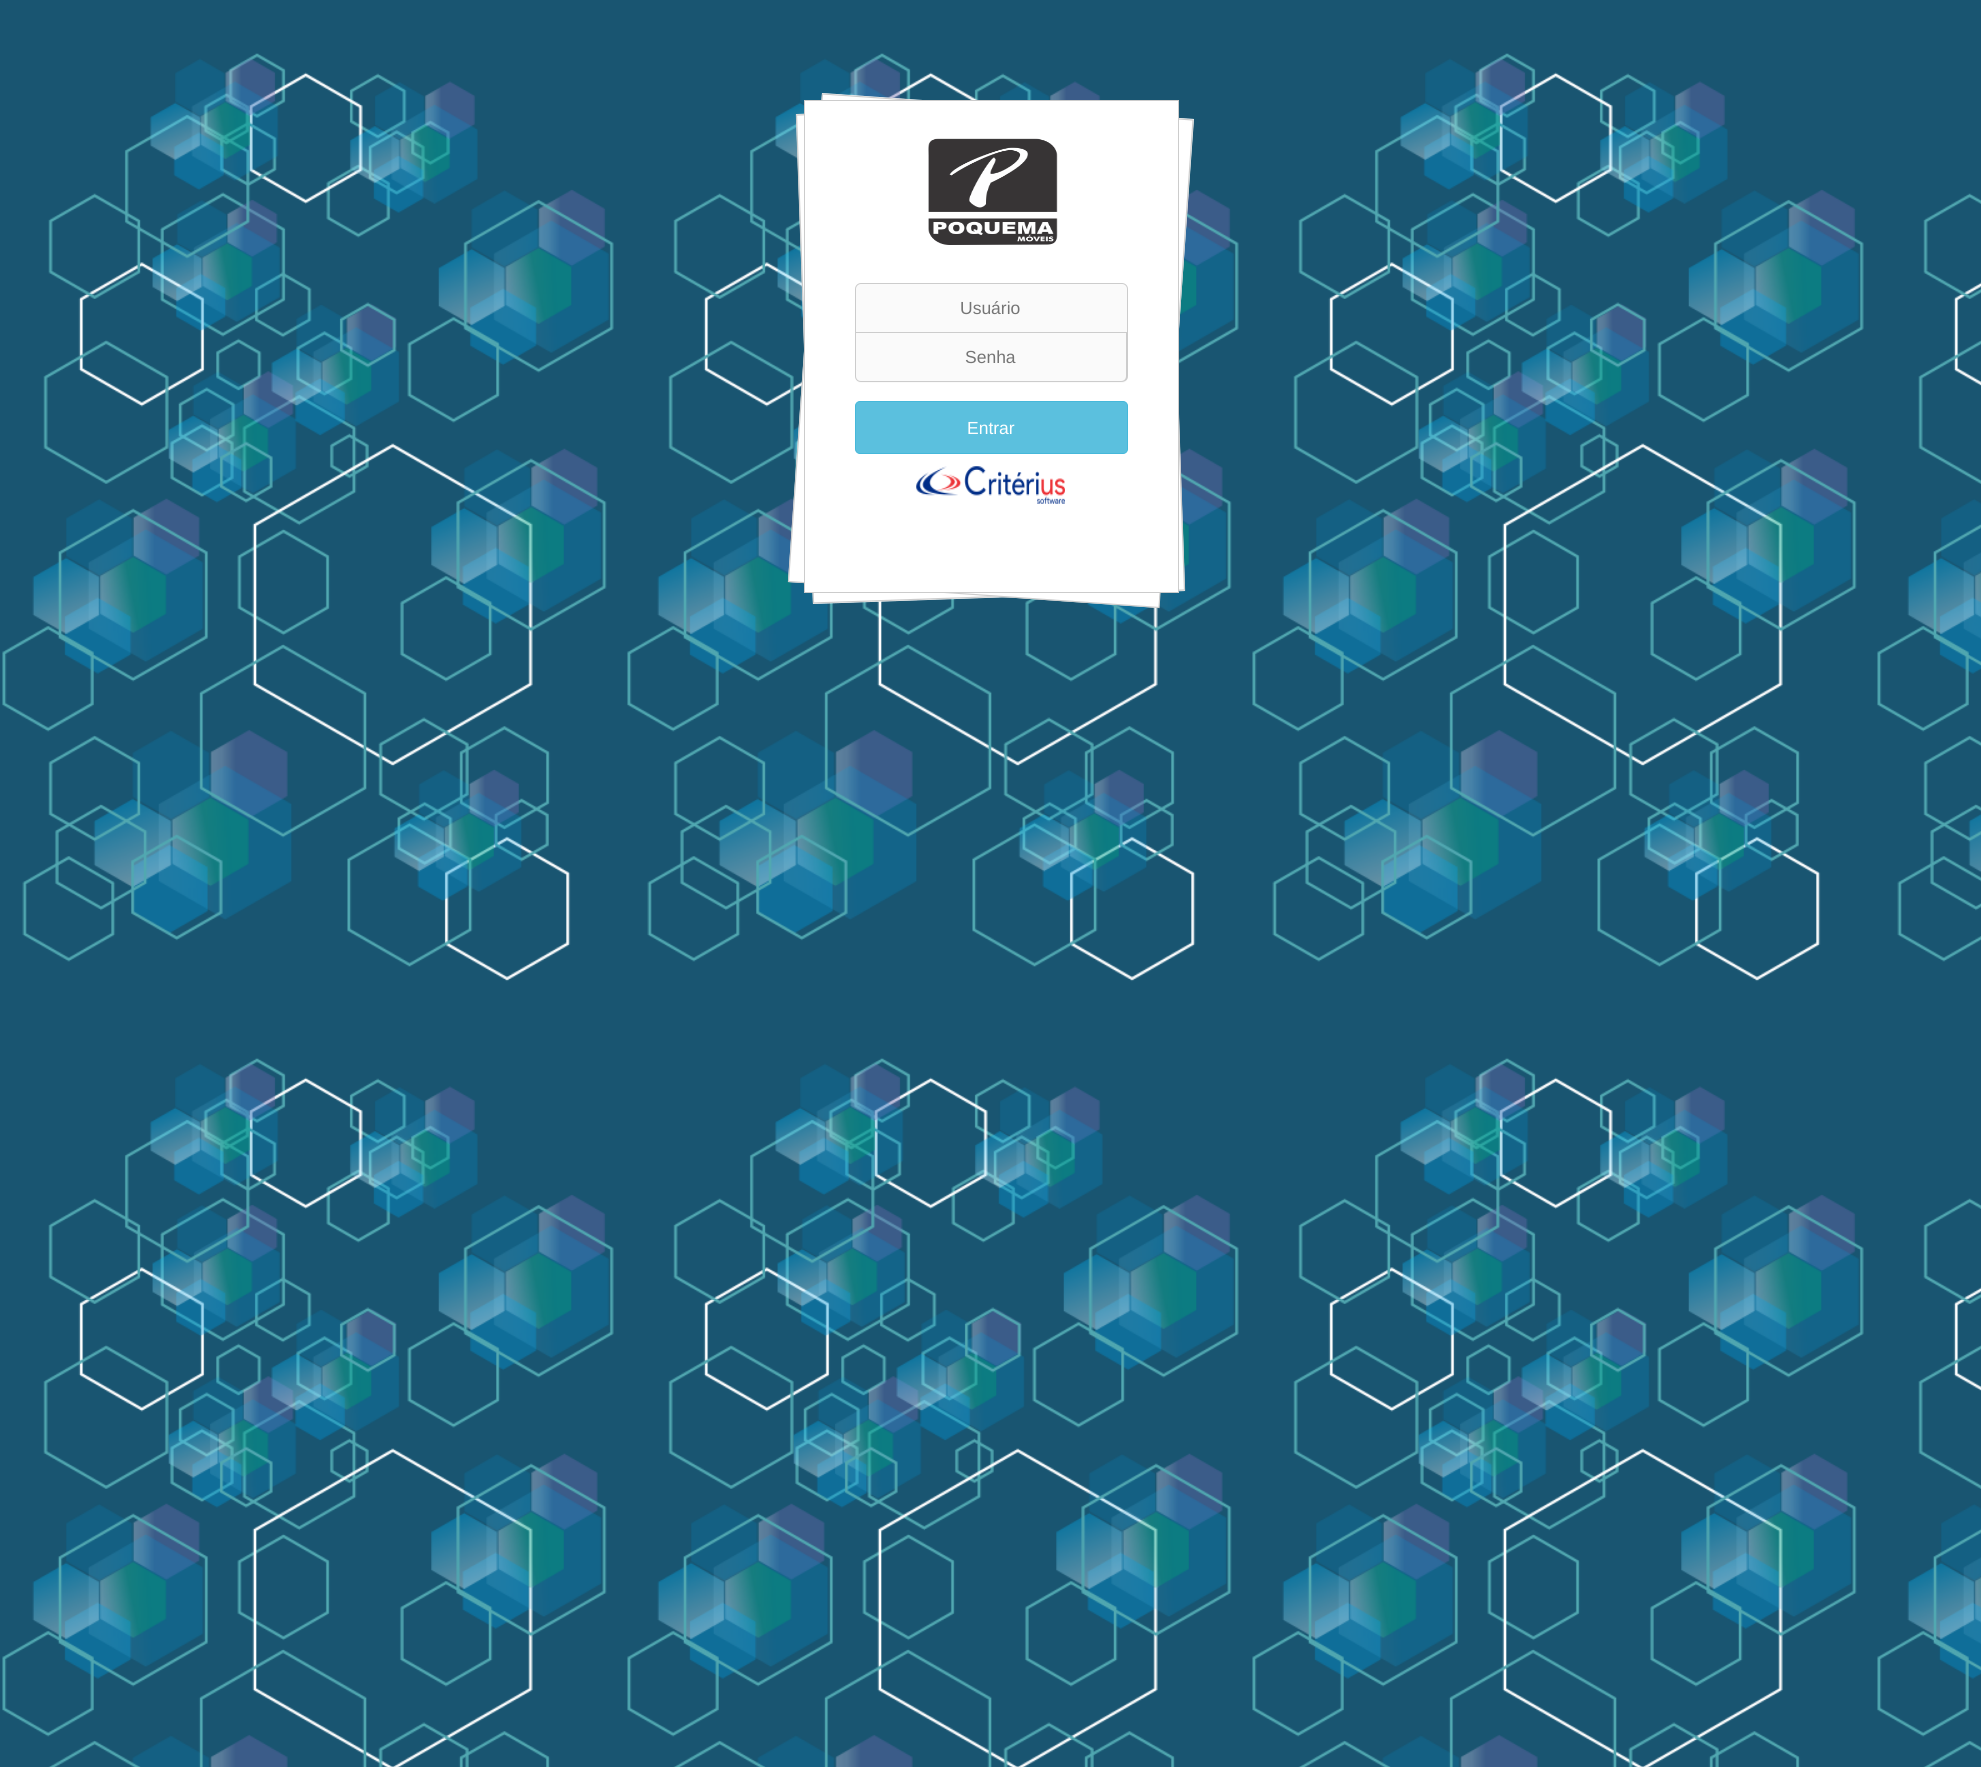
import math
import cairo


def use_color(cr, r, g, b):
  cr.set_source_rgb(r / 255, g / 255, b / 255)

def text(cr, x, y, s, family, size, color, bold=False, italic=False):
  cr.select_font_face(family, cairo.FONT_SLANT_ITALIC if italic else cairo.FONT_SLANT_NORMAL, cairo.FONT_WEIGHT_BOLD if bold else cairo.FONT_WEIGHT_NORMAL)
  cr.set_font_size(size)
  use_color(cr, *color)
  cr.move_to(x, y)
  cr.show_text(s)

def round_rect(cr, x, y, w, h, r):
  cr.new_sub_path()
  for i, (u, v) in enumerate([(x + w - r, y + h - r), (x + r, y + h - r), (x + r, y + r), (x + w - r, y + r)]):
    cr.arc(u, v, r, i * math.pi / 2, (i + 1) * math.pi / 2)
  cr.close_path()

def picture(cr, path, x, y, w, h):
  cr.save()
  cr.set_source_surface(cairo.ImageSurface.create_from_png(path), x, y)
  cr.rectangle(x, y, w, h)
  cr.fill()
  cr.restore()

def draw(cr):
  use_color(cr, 25, 85, 113)
  cr.paint()
  picture(cr, "img_01.png", 2, 53, 1979, 1714)
  use_color(cr, 255, 255, 255)
  cr.new_path()
  cr.move_to(796, 114)
  cr.line_to(1168, 101)
  cr.line_to(1185, 591)
  cr.line_to(813, 604)
  cr.close_path()
  cr.fill()
  cr.new_path()
  cr.move_to(796.5, 115)
  cr.line_to(1167.5, 102)
  cr.line_to(1184.5, 590)
  cr.line_to(813.5, 603)
  cr.close_path()
  use_color(cr, 204, 204, 204)
  cr.set_line_width(1.3)
  cr.stroke()
  use_color(cr, 255, 255, 255)
  cr.new_path()
  cr.move_to(822, 93)
  cr.line_to(1194, 119)
  cr.line_to(1159, 608)
  cr.line_to(788, 582)
  cr.close_path()
  cr.fill()
  cr.new_path()
  cr.move_to(822.5, 94)
  cr.line_to(1193, 120)
  cr.line_to(1159, 607.5)
  cr.line_to(788.5, 581.5)
  cr.close_path()
  use_color(cr, 204, 204, 204)
  cr.set_line_width(1.2)
  cr.stroke()
  use_color(cr, 255, 255, 255)
  cr.rectangle(804.5, 100.5, 374, 492)
  cr.fill_preserve()
  use_color(cr, 204, 204, 204)
  cr.set_line_width(1)
  cr.stroke()
  picture(cr, "img_02.png", 928, 138, 130, 107)
  use_color(cr, 250, 250, 250)
  cr.new_path()
  cr.move_to(861, 283.5)
  cr.line_to(1122, 283.5)
  cr.curve_to(1125, 283.5, 1127.5, 286, 1127.5, 289)
  cr.line_to(1127.5, 332.5)
  cr.line_to(855.5, 332.5)
  cr.line_to(855.5, 289)
  cr.curve_to(855.5, 286, 858, 283.5, 861, 283.5)
  cr.close_path()
  cr.fill_preserve()
  use_color(cr, 204, 204, 204)
  cr.stroke()
  use_color(cr, 250, 250, 250)
  cr.new_path()
  cr.move_to(855, 333)
  cr.line_to(1128, 333)
  cr.line_to(1128, 377)
  cr.curve_to(1128, 380.5, 1125.5, 383, 1122, 383)
  cr.line_to(861, 383)
  cr.curve_to(857.5, 383, 855, 380.5, 855, 377)
  cr.close_path()
  cr.fill()
  use_color(cr, 204, 204, 204)
  cr.set_fill_rule(cairo.FILL_RULE_EVEN_ODD)
  cr.new_path()
  cr.move_to(855, 332)
  cr.line_to(1128, 332)
  cr.line_to(1128, 376)
  cr.curve_to(1128, 380, 1125, 382, 1121, 382)
  cr.line_to(861, 382)
  cr.curve_to(858, 382, 855, 380, 855, 376)
  cr.close_path()
  cr.move_to(856, 332)
  cr.line_to(1126, 332)
  cr.line_to(1126, 376)
  cr.curve_to(1126, 379, 1124, 381, 1121, 381)
  cr.line_to(861, 381)
  cr.curve_to(858, 381, 856, 379, 856, 376)
  cr.close_path()
  cr.fill()
  use_color(cr, 91, 192, 222)
  round_rect(cr, 855.5, 401.5, 272, 52, 4.5)
  cr.fill_preserve()
  use_color(cr, 70, 184, 218)
  cr.stroke()
  picture(cr, "img_03.png", 916, 466, 149, 38)
  text(cr, 960, 314, "Usuário", "Liberation Sans", 17.5, (117, 117, 117))
  text(cr, 965, 363, "Senha", "Liberation Sans", 17.5, (117, 117, 117))
  text(cr, 967, 434, "Entrar", "Liberation Sans", 17.5, (255, 255, 255))


surface = cairo.ImageSurface(cairo.FORMAT_RGB24, 1981, 1767)
cr = cairo.Context(surface)
options = cairo.FontOptions()
options.set_hint_metrics(cairo.HINT_METRICS_OFF)
options.set_hint_style(cairo.HINT_STYLE_NONE)
cr.set_font_options(options)
cr.set_miter_limit(4)
draw(cr)
surface.write_to_png("out.png")
